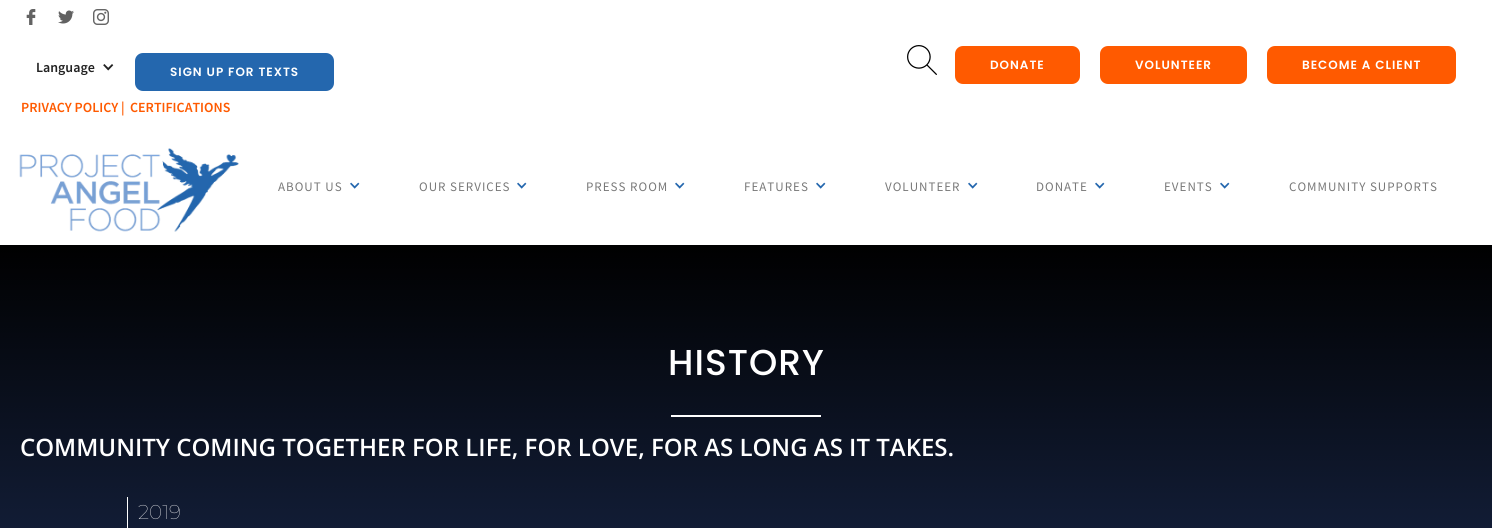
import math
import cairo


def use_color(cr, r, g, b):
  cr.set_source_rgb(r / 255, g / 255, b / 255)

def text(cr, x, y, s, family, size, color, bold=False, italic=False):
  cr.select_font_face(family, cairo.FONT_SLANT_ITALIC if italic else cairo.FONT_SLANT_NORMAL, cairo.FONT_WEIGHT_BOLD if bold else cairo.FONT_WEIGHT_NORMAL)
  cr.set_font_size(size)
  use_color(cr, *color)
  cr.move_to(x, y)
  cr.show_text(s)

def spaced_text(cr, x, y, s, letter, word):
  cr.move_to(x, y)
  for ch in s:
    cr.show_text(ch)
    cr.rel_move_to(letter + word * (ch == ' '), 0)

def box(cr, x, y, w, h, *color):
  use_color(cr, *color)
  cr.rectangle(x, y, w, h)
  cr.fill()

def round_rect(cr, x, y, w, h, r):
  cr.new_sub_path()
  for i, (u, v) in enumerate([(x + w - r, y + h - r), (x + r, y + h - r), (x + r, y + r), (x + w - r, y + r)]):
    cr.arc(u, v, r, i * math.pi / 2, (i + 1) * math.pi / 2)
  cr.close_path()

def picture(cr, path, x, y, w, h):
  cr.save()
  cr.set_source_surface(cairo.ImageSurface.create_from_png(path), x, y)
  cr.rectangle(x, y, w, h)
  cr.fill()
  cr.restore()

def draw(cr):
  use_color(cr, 255, 255, 255)
  cr.paint()
  picture(cr, "img_01.png", 26, 9, 10, 16)
  picture(cr, "img_02.png", 58, 10, 16, 14)
  picture(cr, "img_03.png", 93, 9, 16, 16)
  picture(cr, "img_04.png", 103, 64, 11, 7)
  use_color(cr, 36, 103, 174)
  round_rect(cr, 135, 53, 199, 38, 8)
  cr.fill()
  picture(cr, "img_05.png", 907, 45, 30, 30)
  use_color(cr, 255, 90, 0)
  round_rect(cr, 955, 46, 125, 38, 8)
  cr.fill()
  round_rect(cr, 1100, 46, 147, 38, 8)
  cr.fill()
  round_rect(cr, 1267, 46, 189, 38, 8)
  cr.fill()
  picture(cr, "img_06.png", 19, 148, 220, 84)
  picture(cr, "img_07.png", 350, 182, 10, 7)
  picture(cr, "img_07.png", 517, 182, 10, 7)
  picture(cr, "img_07.png", 675, 182, 10, 7)
  picture(cr, "img_07.png", 816, 182, 10, 7)
  picture(cr, "img_07.png", 968, 182, 10, 7)
  picture(cr, "img_07.png", 1095, 182, 10, 7)
  picture(cr, "img_07.png", 1220, 182, 10, 7)
  picture(cr, "img_08.png", 0, 245, 1492, 283)
  box(cr, 671, 415, 150, 2, 255, 255, 255)
  box(cr, 127, 497, 1, 31, 255, 255, 255)
  text(cr, 36, 72, "Language", "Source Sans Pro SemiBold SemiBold", 14, (34, 34, 34))
  cr.select_font_face("Poppins SemiBold")
  cr.set_font_size(12)
  use_color(cr, 255, 255, 255)
  spaced_text(cr, 170, 76, "SIGN UP FOR TEXTS", 1, 0)
  text(cr, 21, 112, "PRIVACY POLICY |", "Source Sans Pro SemiBold SemiBold", 14, (255, 90, 0))
  text(cr, 130, 112, "CERTIFICATIONS", "Source Sans Pro SemiBold SemiBold", 14, (255, 90, 0))
  cr.select_font_face("Poppins SemiBold")
  cr.set_font_size(12)
  use_color(cr, 255, 255, 255)
  spaced_text(cr, 990, 69, "DONATE", 1, 0)
  spaced_text(cr, 1135, 69, "VOLUNTEER", 1, 0)
  spaced_text(cr, 1302, 69, "BECOME A CLIENT", 1, 0)
  cr.select_font_face("Source Sans Pro")
  cr.set_font_size(13)
  use_color(cr, 121, 121, 121)
  spaced_text(cr, 278, 191, "ABOUT US", 1, 0)
  spaced_text(cr, 419, 191, "OUR SERVICES", 1, 0)
  spaced_text(cr, 586, 191, "PRESS ROOM", 1, 0)
  spaced_text(cr, 744, 191, "FEATURES", 1, 0)
  spaced_text(cr, 885, 191, "VOLUNTEER", 1, 0)
  spaced_text(cr, 1036, 191, "DONATE", 1, 0)
  spaced_text(cr, 1164, 191, "EVENTS", 1, 0)
  spaced_text(cr, 1289, 191, "COMMUNITY SUPPORTS", 1, 0)
  cr.select_font_face("Poppins Medium")
  cr.set_font_size(36)
  use_color(cr, 255, 255, 255)
  spaced_text(cr, 668, 375, "HISTORY", 1, 0)
  text(cr, 20, 456, "COMMUNITY COMING TOGETHER FOR LIFE, FOR LOVE, FOR AS LONG AS IT TAKES.", "Open Sans SemiBold", 24, (255, 255, 255))
  text(cr, 138, 519, "2019", "Montserrat Thin", 20, (255, 255, 255))


surface = cairo.ImageSurface(cairo.FORMAT_RGB24, 1492, 528)
cr = cairo.Context(surface)
options = cairo.FontOptions()
options.set_hint_metrics(cairo.HINT_METRICS_OFF)
options.set_hint_style(cairo.HINT_STYLE_NONE)
cr.set_font_options(options)
cr.set_miter_limit(4)
draw(cr)
surface.write_to_png("out.png")
